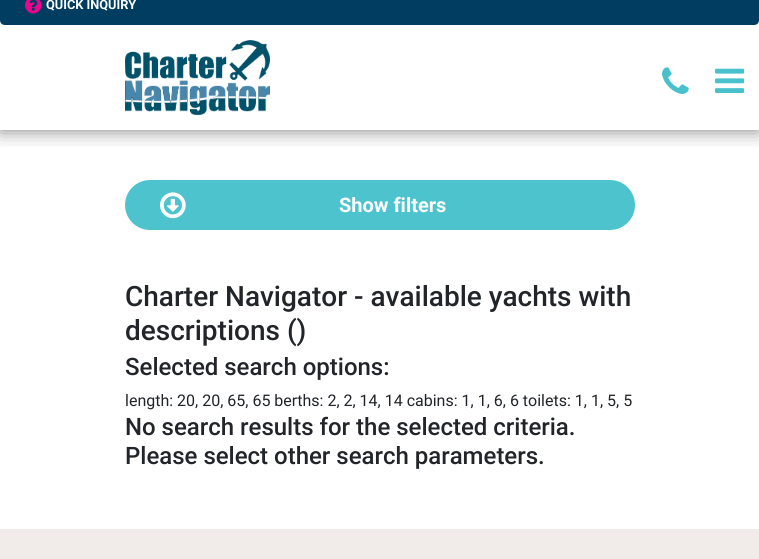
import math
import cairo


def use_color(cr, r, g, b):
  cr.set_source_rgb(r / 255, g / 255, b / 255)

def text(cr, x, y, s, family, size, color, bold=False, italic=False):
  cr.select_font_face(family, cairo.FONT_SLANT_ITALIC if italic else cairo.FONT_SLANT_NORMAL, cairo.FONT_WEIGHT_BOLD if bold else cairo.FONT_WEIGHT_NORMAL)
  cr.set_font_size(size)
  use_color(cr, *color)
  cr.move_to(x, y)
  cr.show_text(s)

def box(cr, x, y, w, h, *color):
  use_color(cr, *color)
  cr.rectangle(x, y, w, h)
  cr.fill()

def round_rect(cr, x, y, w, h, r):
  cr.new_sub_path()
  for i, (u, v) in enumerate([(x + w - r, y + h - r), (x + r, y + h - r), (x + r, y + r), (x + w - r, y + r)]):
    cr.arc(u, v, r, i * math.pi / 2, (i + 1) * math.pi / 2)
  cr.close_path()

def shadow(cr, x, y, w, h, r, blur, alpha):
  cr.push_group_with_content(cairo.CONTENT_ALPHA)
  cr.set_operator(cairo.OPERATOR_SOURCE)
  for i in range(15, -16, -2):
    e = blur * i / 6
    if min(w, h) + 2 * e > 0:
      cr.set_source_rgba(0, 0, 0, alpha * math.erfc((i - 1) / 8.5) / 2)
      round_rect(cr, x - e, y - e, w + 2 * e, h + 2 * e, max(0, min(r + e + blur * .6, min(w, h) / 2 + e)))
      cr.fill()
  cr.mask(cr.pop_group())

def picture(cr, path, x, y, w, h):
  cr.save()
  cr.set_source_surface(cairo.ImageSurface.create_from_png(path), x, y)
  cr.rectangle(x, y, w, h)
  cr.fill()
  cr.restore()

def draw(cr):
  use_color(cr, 255, 255, 255)
  cr.paint()
  cr.save()
  cr.rectangle(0, 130, 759, 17)
  cr.clip()
  use_color(cr, 0, 0, 0)
  shadow(cr, 0, 0, 759, 130, 0, 10, 0.5)
  cr.restore()
  use_color(cr, 0, 61, 96)
  cr.new_path()
  cr.move_to(0, -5)
  cr.line_to(759, -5)
  cr.line_to(759, 20)
  cr.curve_to(759, 23, 757, 25, 754, 25)
  cr.line_to(5, 25)
  cr.curve_to(2, 25, 0, 23, 0, 20)
  cr.close_path()
  cr.fill()
  picture(cr, "img_01.png", 25, 0, 17, 14)
  picture(cr, "img_02.png", 125, 40, 145, 75)
  picture(cr, "img_03.png", 662, 67, 27, 27)
  picture(cr, "img_04.png", 715, 68, 30, 25)
  use_color(cr, 77, 196, 205)
  round_rect(cr, 125, 180, 510, 50, 25)
  cr.fill()
  picture(cr, "img_05.png", 160, 192, 26, 27)
  box(cr, 0, 529, 759, 30, 241, 236, 233)
  text(cr, 46, 9, "QUICK INQUIRY", "Roboto", 12.75, (255, 255, 255), bold=True)
  text(cr, 339, 212, "Show filters", "Roboto", 20, (255, 255, 255), bold=True)
  text(cr, 125, 306, "Charter Navigator - available yachts with", "Roboto Medium", 28, (33, 37, 41))
  text(cr, 125, 340, "descriptions ()", "Roboto Medium", 28, (33, 37, 41))
  text(cr, 125, 375, "Selected search options:", "Roboto Medium", 24, (33, 37, 41))
  text(cr, 125, 406, "length: 20, 20, 65, 65 berths: 2, 2, 14, 14 cabins: 1, 1, 6, 6 toilets: 1, 1, 5, 5", "Roboto", 16, (33, 37, 41))
  text(cr, 125, 435, "No search results for the selected criteria.", "Roboto Medium", 24, (33, 37, 41))
  text(cr, 125, 464, "Please select other search parameters.", "Roboto Medium", 24, (33, 37, 41))


surface = cairo.ImageSurface(cairo.FORMAT_RGB24, 759, 559)
cr = cairo.Context(surface)
options = cairo.FontOptions()
options.set_hint_metrics(cairo.HINT_METRICS_OFF)
options.set_hint_style(cairo.HINT_STYLE_NONE)
cr.set_font_options(options)
cr.set_miter_limit(4)
draw(cr)
surface.write_to_png("out.png")
